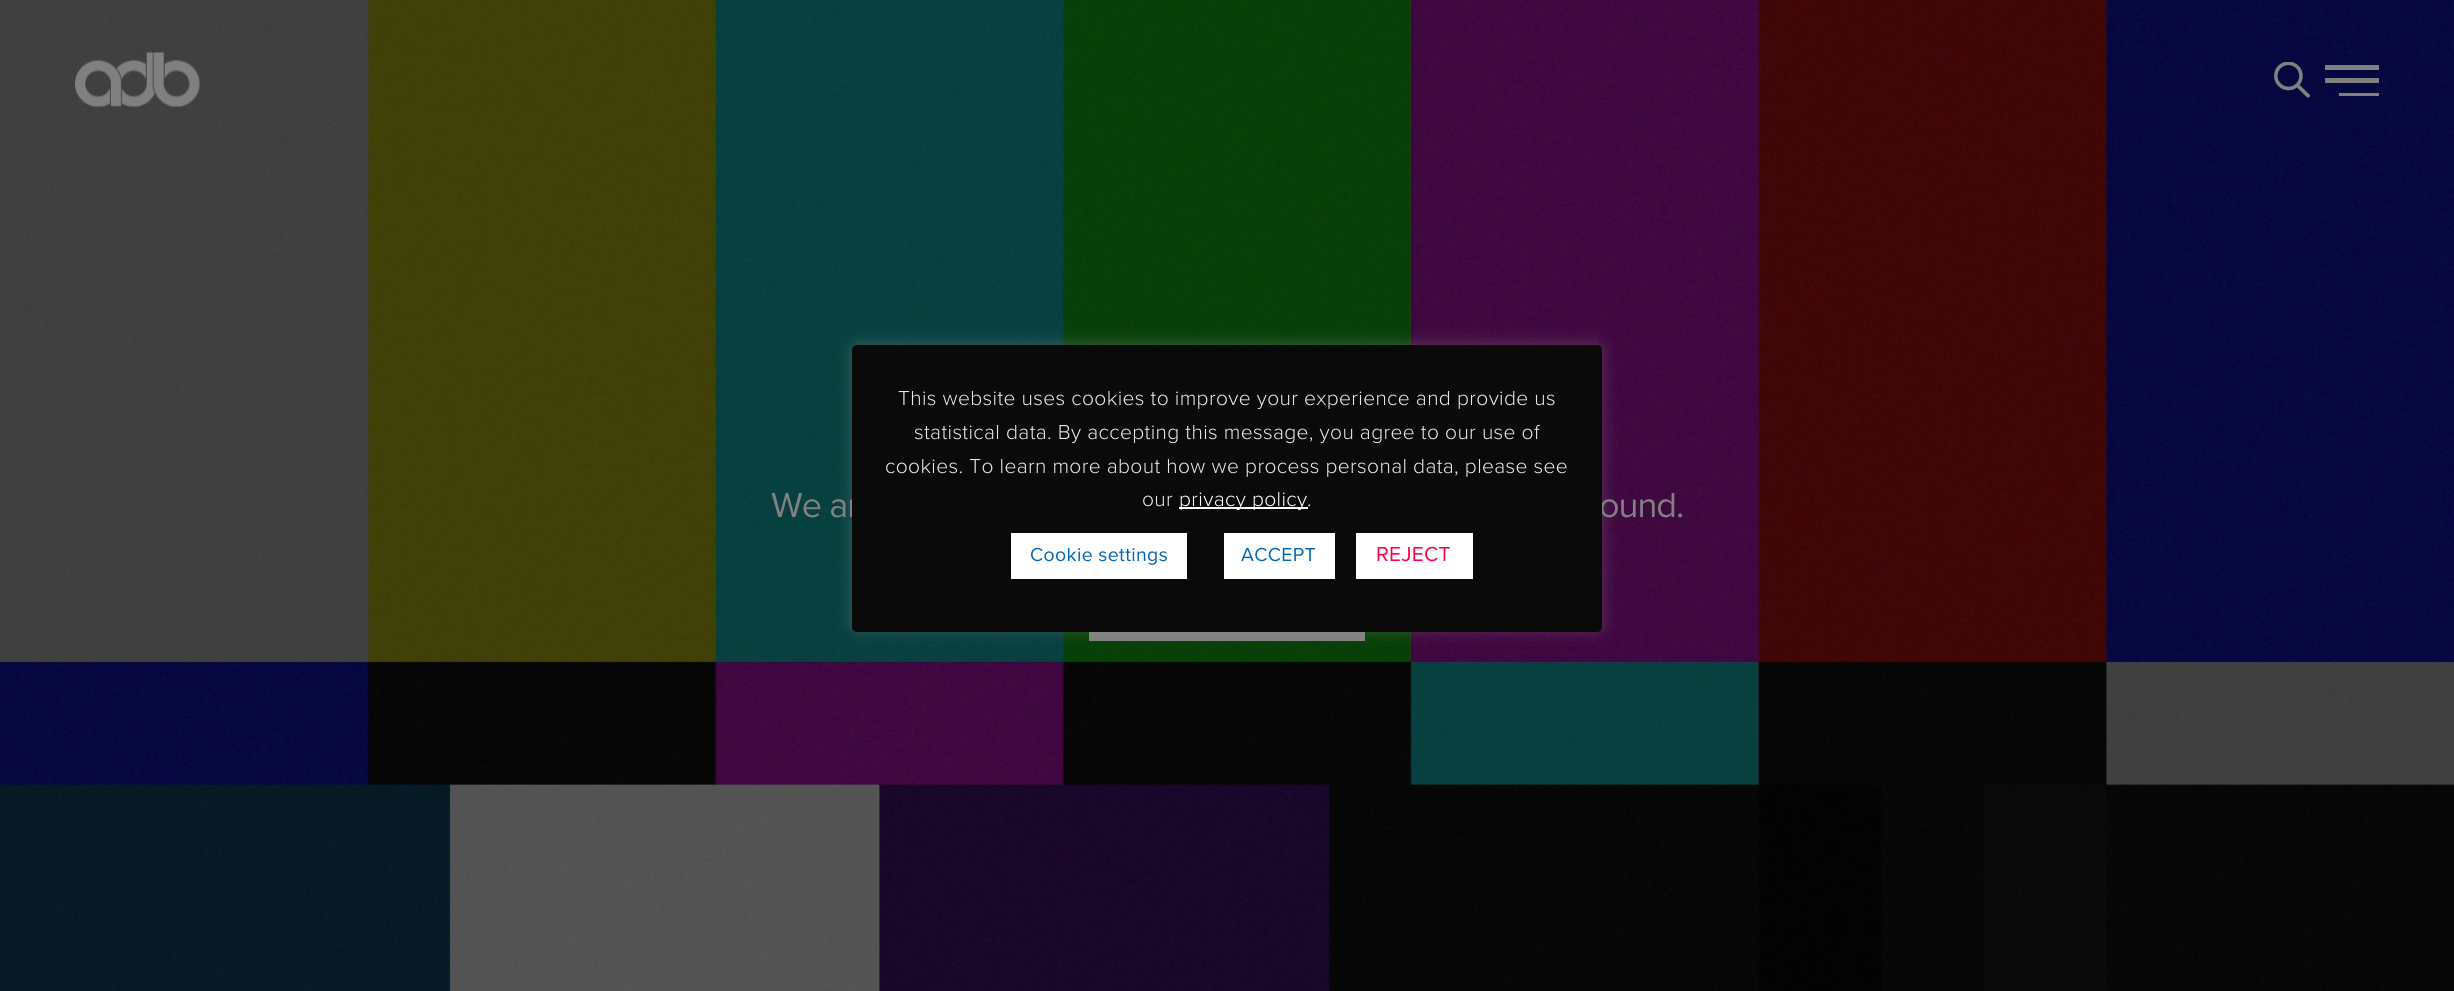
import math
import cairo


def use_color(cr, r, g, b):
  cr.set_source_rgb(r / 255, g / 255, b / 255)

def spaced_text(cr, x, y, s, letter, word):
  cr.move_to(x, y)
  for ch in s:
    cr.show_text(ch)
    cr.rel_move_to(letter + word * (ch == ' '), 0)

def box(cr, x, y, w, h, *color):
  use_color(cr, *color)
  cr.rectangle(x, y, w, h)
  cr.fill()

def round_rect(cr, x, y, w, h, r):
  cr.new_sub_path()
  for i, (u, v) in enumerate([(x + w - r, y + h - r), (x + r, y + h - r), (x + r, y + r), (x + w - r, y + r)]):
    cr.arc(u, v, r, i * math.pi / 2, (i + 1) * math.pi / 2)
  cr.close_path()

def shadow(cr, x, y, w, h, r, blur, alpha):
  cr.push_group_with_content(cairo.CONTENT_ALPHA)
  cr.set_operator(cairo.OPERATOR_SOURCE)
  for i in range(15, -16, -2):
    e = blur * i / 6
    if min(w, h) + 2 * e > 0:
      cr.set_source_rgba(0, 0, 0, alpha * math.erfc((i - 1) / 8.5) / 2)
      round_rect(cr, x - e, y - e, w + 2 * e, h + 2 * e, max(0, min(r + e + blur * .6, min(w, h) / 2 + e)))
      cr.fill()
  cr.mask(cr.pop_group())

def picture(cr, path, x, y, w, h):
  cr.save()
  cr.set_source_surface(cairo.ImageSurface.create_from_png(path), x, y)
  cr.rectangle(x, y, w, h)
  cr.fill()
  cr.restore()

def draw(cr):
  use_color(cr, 255, 255, 255)
  cr.paint()
  picture(cr, "img_03.png", 0, 0, 2454, 991)
  box(cr, 1089, 632, 276, 9, 128, 128, 128)
  use_color(cr, 172, 171, 171)
  shadow(cr, 852, 344, 750, 286, 5, 7.5, 0.3)
  picture(cr, "img_01.png", 75, 52, 125, 55)
  picture(cr, "img_02.png", 2274, 62, 36, 36)
  box(cr, 2325, 65, 54, 5, 128, 128, 128)
  box(cr, 2325, 78, 54, 5, 128, 128, 128)
  box(cr, 2339, 93, 40, 3, 128, 128, 128)
  cr.select_font_face("Proxima Nova")
  cr.set_font_size(36)
  spaced_text(cr, 771, 517, "We ar", -1, 0)
  spaced_text(cr, 1599, 517, "ound.", -1, 0)
  use_color(cr, 10, 10, 10)
  round_rect(cr, 852, 345, 750, 287, 5)
  cr.fill()
  box(cr, 1356, 533, 117, 46, 255, 255, 255)
  cr.set_font_size(21)
  use_color(cr, 255, 0, 68)
  spaced_text(cr, 1376, 561, "REJECT", 0.35, 0)
  box(cr, 1224, 533, 111, 46, 255, 255, 255)
  cr.set_font_size(19.5)
  use_color(cr, 0, 102, 185)
  spaced_text(cr, 1241, 561, "ACCEPT", 0.35, 0)
  box(cr, 1011, 533, 176, 46, 255, 255, 255)
  use_color(cr, 0, 102, 185)
  spaced_text(cr, 1030, 561, "Cookie settings", 0.35, 0)
  cr.select_font_face("Proxima Nova Light")
  cr.set_font_size(21)
  use_color(cr, 232, 232, 232)
  spaced_text(cr, 1307, 506, ".", 0.35, 0)
  box(cr, 1179, 507, 129, 2, 255, 255, 255)
  spaced_text(cr, 1179, 506, "privacy policy", 0.35, 0)
  use_color(cr, 232, 232, 232)
  spaced_text(cr, 1142, 506, "our", 0.35, 0)
  spaced_text(cr, 885, 473, "cookies. To learn more about how we process personal data, please see", 0.35, 0)
  spaced_text(cr, 914, 439, "statistical data. By accepting this message, you agree to our use of", 0.35, 0)
  spaced_text(cr, 898, 405, "This website uses cookies to improve your experience and provide us", 0.35, 0)


surface = cairo.ImageSurface(cairo.FORMAT_RGB24, 2454, 991)
cr = cairo.Context(surface)
options = cairo.FontOptions()
options.set_hint_metrics(cairo.HINT_METRICS_OFF)
options.set_hint_style(cairo.HINT_STYLE_NONE)
cr.set_font_options(options)
cr.set_miter_limit(4)
draw(cr)
surface.write_to_png("out.png")
